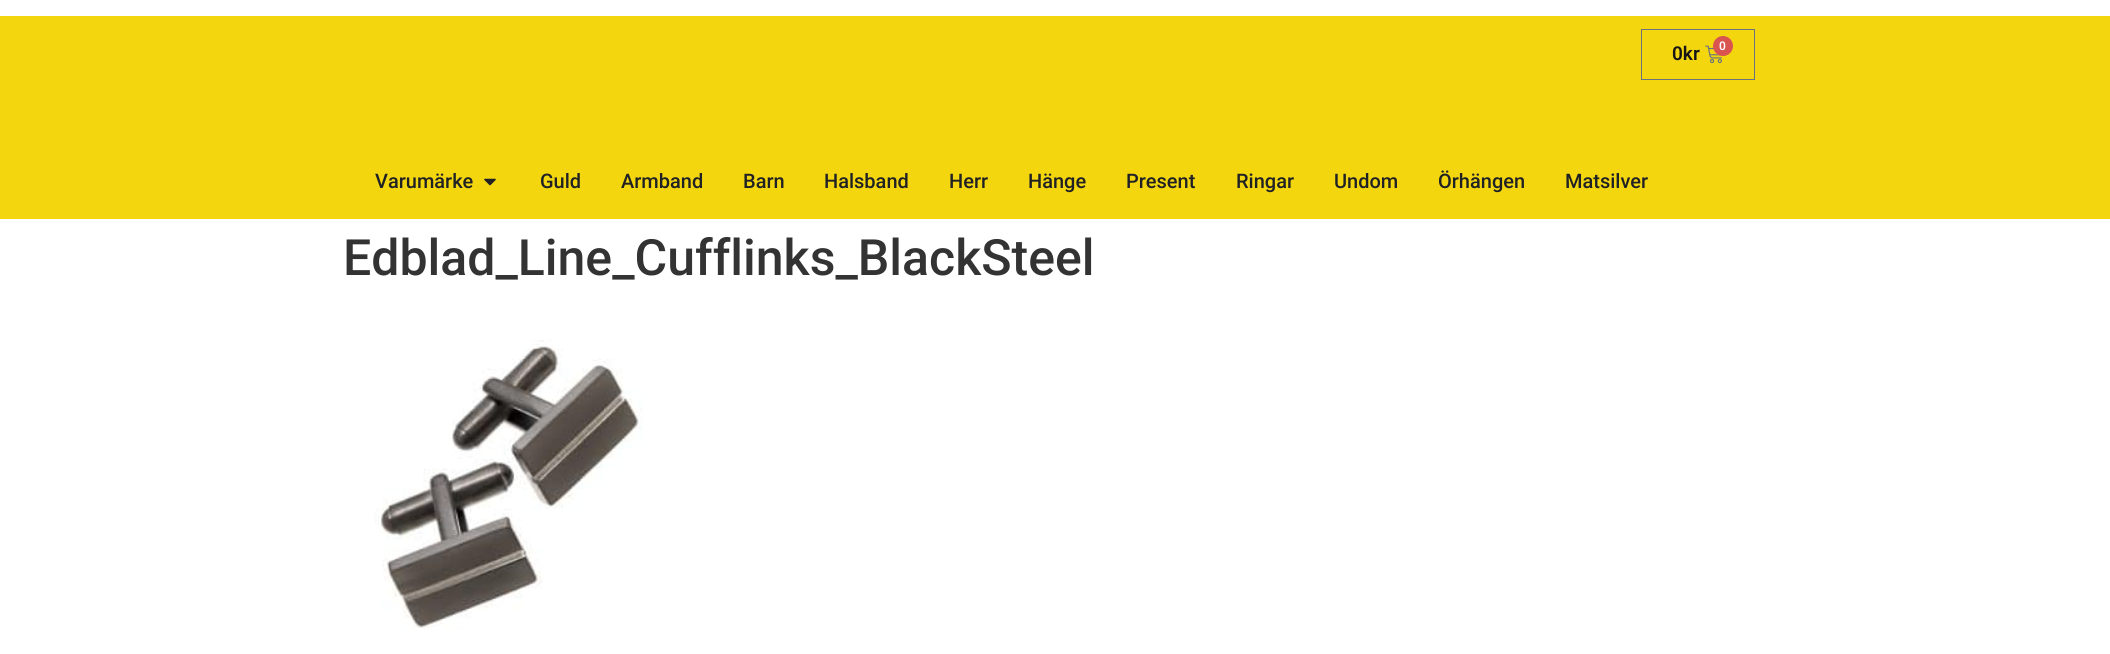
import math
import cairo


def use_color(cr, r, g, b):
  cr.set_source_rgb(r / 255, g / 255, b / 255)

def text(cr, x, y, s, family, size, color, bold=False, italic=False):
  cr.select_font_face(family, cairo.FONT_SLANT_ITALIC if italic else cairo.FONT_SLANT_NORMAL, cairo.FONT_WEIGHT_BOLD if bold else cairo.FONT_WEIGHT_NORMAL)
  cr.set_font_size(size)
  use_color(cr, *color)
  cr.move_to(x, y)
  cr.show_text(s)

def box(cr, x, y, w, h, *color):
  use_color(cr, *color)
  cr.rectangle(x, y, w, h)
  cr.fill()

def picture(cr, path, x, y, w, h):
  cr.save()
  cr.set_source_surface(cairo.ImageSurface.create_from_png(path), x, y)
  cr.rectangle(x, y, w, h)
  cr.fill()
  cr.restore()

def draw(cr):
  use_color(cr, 255, 255, 255)
  cr.paint()
  box(cr, 0, 16, 2110, 203, 244, 214, 15)
  cr.rectangle(1641.5, 29.5, 113, 50)
  use_color(cr, 105, 114, 125)
  cr.set_line_width(1)
  cr.stroke()
  picture(cr, "img_01.png", 1705, 45, 17, 19)
  use_color(cr, 217, 83, 79)
  cr.arc(1723, 46, 10, 0, 2 * math.pi)
  cr.fill()
  picture(cr, "img_02.png", 484, 178, 12, 8)
  picture(cr, "img_03.png", 374, 339, 269, 290)
  text(cr, 1672, 60, "0kr", "Roboto SemiBold", 19, (23, 21, 21))
  text(cr, 1719, 50, "0", "Roboto SemiBold", 12, (255, 255, 255))
  text(cr, 375, 188, "Varumärke", "Roboto Medium", 20, (31, 33, 36))
  text(cr, 540, 188, "Guld", "Roboto Medium", 20, (31, 33, 36))
  text(cr, 621, 188, "Armband", "Roboto Medium", 20, (31, 33, 36))
  text(cr, 743, 188, "Barn", "Roboto Medium", 20, (31, 33, 36))
  text(cr, 824, 188, "Halsband", "Roboto Medium", 20, (31, 33, 36))
  text(cr, 949, 188, "Herr", "Roboto Medium", 20, (31, 33, 36))
  text(cr, 1028, 188, "Hänge", "Roboto Medium", 20, (31, 33, 36))
  text(cr, 1126, 188, "Present", "Roboto Medium", 20, (31, 33, 36))
  text(cr, 1236, 188, "Ringar", "Roboto Medium", 20, (31, 33, 36))
  text(cr, 1334, 188, "Undom", "Roboto Medium", 20, (31, 33, 36))
  text(cr, 1438, 188, "Örhängen", "Roboto Medium", 20, (31, 33, 36))
  text(cr, 1565, 188, "Matsilver", "Roboto Medium", 20, (31, 33, 36))
  text(cr, 343, 275, "Edblad_Line_Cufflinks_BlackSteel", "Roboto Medium", 50, (51, 51, 51))


surface = cairo.ImageSurface(cairo.FORMAT_RGB24, 2110, 654)
cr = cairo.Context(surface)
options = cairo.FontOptions()
options.set_hint_metrics(cairo.HINT_METRICS_OFF)
options.set_hint_style(cairo.HINT_STYLE_NONE)
cr.set_font_options(options)
cr.set_miter_limit(4)
draw(cr)
surface.write_to_png("out.png")
